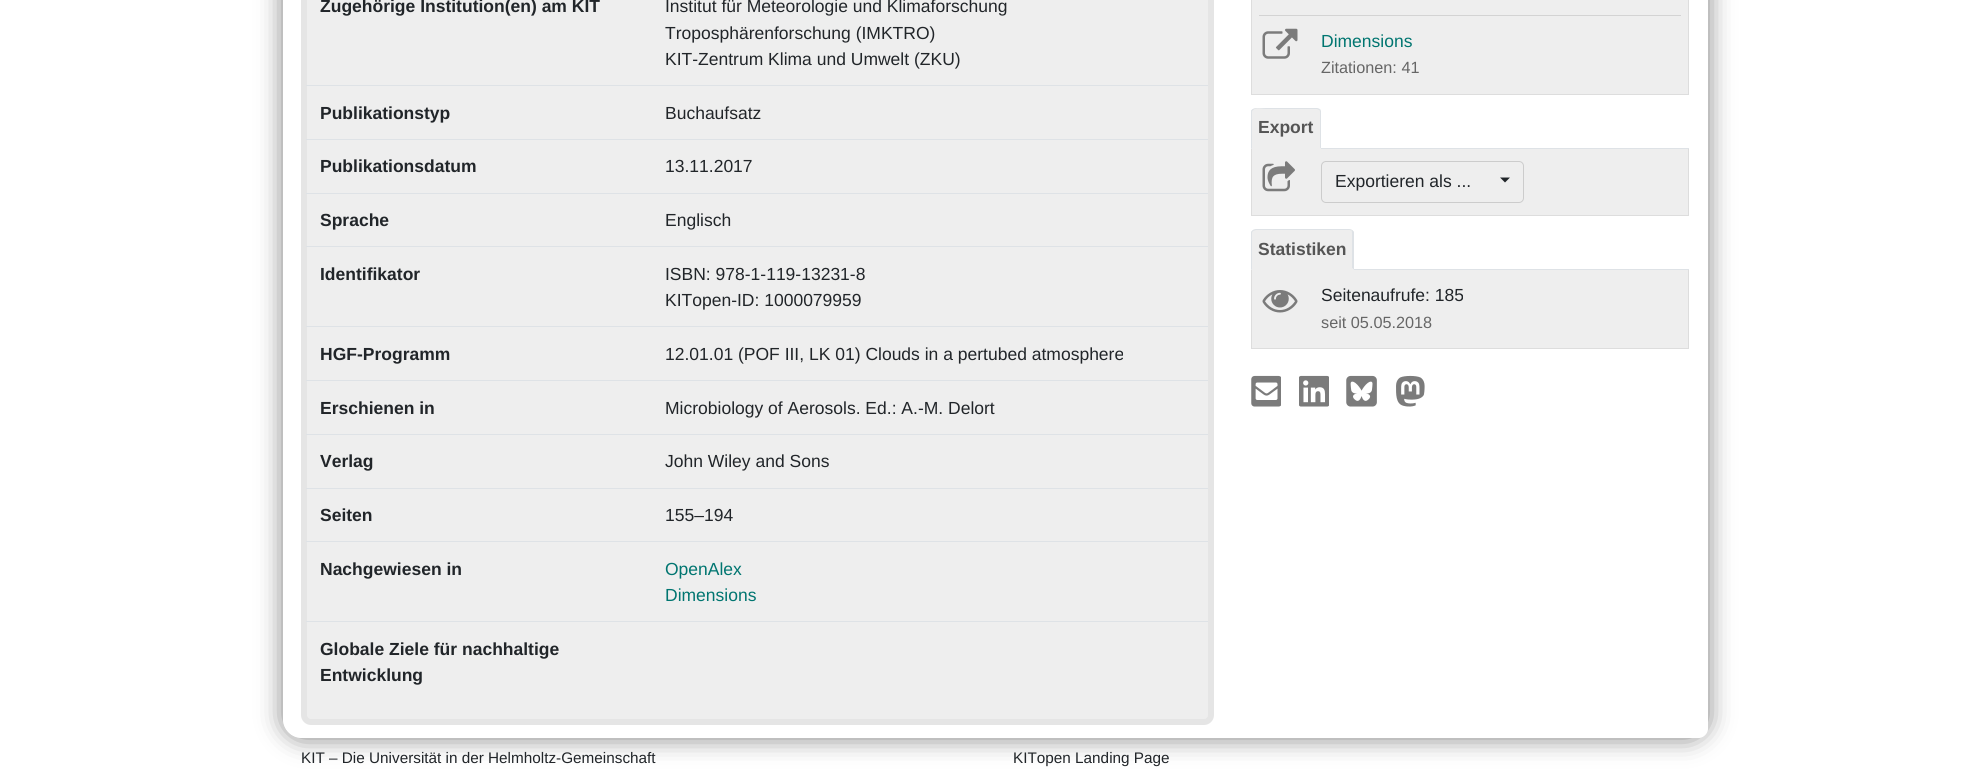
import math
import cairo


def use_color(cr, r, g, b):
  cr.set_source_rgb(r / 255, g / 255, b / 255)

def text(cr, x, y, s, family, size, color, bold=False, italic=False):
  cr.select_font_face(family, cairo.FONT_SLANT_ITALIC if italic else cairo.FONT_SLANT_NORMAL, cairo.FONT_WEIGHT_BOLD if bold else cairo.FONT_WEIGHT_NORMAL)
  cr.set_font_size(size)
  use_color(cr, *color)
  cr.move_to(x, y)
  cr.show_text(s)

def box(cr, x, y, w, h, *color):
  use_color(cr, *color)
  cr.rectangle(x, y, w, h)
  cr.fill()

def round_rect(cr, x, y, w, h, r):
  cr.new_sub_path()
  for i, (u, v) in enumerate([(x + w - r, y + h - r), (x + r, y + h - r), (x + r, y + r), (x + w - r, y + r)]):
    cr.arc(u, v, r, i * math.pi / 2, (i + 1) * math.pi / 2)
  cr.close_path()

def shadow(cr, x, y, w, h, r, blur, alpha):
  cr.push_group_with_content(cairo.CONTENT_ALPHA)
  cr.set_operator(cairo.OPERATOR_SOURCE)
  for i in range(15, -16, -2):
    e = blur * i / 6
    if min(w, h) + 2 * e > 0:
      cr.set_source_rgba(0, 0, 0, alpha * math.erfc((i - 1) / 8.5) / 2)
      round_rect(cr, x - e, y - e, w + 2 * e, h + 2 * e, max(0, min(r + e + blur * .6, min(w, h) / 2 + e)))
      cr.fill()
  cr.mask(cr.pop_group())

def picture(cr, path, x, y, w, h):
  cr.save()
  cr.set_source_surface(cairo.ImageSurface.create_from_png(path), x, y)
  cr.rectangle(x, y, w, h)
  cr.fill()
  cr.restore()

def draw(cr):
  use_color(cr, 255, 255, 255)
  cr.paint()
  cr.save()
  cr.set_fill_rule(cairo.FILL_RULE_EVEN_ODD)
  cr.new_path()
  cr.move_to(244, 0)
  cr.line_to(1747, 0)
  cr.line_to(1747, 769)
  cr.line_to(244, 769)
  cr.close_path()
  cr.move_to(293, -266)
  cr.line_to(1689, -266)
  cr.curve_to(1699.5, -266, 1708, -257.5, 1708, -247)
  cr.line_to(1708, 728)
  cr.curve_to(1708, 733.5, 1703.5, 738, 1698, 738)
  cr.line_to(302, 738)
  cr.curve_to(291.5, 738, 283, 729.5, 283, 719)
  cr.line_to(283, -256)
  cr.curve_to(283, -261.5, 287.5, -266, 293, -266)
  cr.close_path()
  cr.clip()
  use_color(cr, 128, 128, 128)
  shadow(cr, 283, -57, 1425, 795, 19, 12.5, 1)
  cr.restore()
  use_color(cr, 238, 238, 238)
  round_rect(cr, 304, -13, 907, 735, 7)
  cr.fill_preserve()
  use_color(cr, 229, 229, 229)
  cr.set_line_width(6)
  cr.stroke()
  box(cr, 306, 85, 902, 1, 222, 226, 230)
  box(cr, 306, 139, 902, 1, 222, 226, 230)
  box(cr, 306, 193, 902, 1, 222, 226, 230)
  box(cr, 306, 246, 902, 1, 222, 226, 230)
  box(cr, 306, 326, 902, 1, 222, 226, 230)
  box(cr, 306, 380, 902, 1, 222, 226, 230)
  box(cr, 306, 434, 902, 1, 222, 226, 230)
  box(cr, 306, 488, 902, 1, 222, 226, 230)
  box(cr, 306, 541, 902, 1, 222, 226, 230)
  box(cr, 306, 621, 902, 1, 222, 226, 230)
  box(cr, 1252, 0, 436, 94, 238, 238, 238)
  box(cr, 1688, 0, 1, 95, 221, 221, 221)
  box(cr, 1251, 94, 438, 1, 221, 221, 221)
  box(cr, 1251, 0, 1, 95, 221, 221, 221)
  box(cr, 1259, 15, 422, 1, 211, 211, 211)
  picture(cr, "img_01.png", 1262, 28, 36, 31)
  box(cr, 1321, 148, 368, 1, 222, 226, 230)
  use_color(cr, 238, 238, 238)
  cr.new_path()
  cr.move_to(1256, 108)
  cr.line_to(1316, 108)
  cr.curve_to(1319, 108, 1321, 110, 1321, 113)
  cr.line_to(1321, 149)
  cr.line_to(1251, 149)
  cr.line_to(1251, 113)
  cr.curve_to(1251, 110, 1253, 108, 1256, 108)
  cr.close_path()
  cr.fill()
  use_color(cr, 222, 226, 230)
  cr.new_path()
  cr.move_to(1256, 108)
  cr.line_to(1253, 109)
  cr.line_to(1253, 110)
  cr.curve_to(1257, 107, 1262, 109, 1266, 109)
  cr.line_to(1317, 109)
  cr.line_to(1319, 110)
  cr.line_to(1320, 109)
  cr.line_to(1317, 108)
  cr.close_path()
  cr.fill()
  cr.new_path()
  cr.move_to(1321, 148.5)
  cr.line_to(1321, 112)
  cr.curve_to(1321, 110.5, 1320.5, 109.5, 1320, 109)
  cr.line_to(1319, 109.5)
  cr.curve_to(1319.5, 110, 1320, 111, 1320, 112)
  cr.line_to(1320, 147.5)
  cr.close_path()
  cr.fill()
  cr.new_path()
  cr.move_to(1251, 149)
  cr.line_to(1252, 148)
  cr.line_to(1252, 111.5)
  cr.line_to(1253.5, 109.5)
  cr.line_to(1252.5, 109)
  cr.line_to(1251, 110.5)
  cr.close_path()
  cr.fill()
  box(cr, 1252, 149, 436, 66, 238, 238, 238)
  box(cr, 1688, 149, 1, 67, 221, 221, 221)
  box(cr, 1251, 215, 438, 1, 221, 221, 221)
  box(cr, 1251, 149, 1, 67, 221, 221, 221)
  picture(cr, "img_02.png", 1262, 161, 33, 31)
  round_rect(cr, 1321.5, 161.5, 202, 41, 4.5)
  use_color(cr, 204, 204, 204)
  cr.set_line_width(1)
  cr.stroke()
  use_color(cr, 33, 37, 41)
  cr.new_path()
  cr.move_to(1500, 177.5)
  cr.line_to(1510, 177.5)
  cr.line_to(1505, 182.5)
  cr.close_path()
  cr.fill()
  box(cr, 1354, 269, 335, 1, 222, 226, 230)
  use_color(cr, 238, 238, 238)
  cr.new_path()
  cr.move_to(1256, 229)
  cr.line_to(1349, 229)
  cr.curve_to(1352, 229, 1354, 231, 1354, 234)
  cr.line_to(1354, 270)
  cr.line_to(1251, 270)
  cr.line_to(1251, 234)
  cr.curve_to(1251, 231, 1253, 229, 1256, 229)
  cr.close_path()
  cr.fill()
  use_color(cr, 222, 226, 230)
  cr.new_path()
  cr.move_to(1256, 229)
  cr.line_to(1253, 230)
  cr.line_to(1253, 231)
  cr.line_to(1256, 230)
  cr.line_to(1349, 230)
  cr.curve_to(1350, 230, 1351, 230, 1351, 231)
  cr.line_to(1352, 230)
  cr.line_to(1349, 229)
  cr.close_path()
  cr.fill()
  cr.new_path()
  cr.move_to(1352.5, 230)
  cr.line_to(1354, 232)
  cr.line_to(1354, 270)
  cr.line_to(1352, 268)
  cr.line_to(1352, 233)
  cr.curve_to(1352, 232, 1352, 231.5, 1351.5, 231)
  cr.close_path()
  cr.fill()
  use_color(cr, 238, 238, 238)
  cr.new_path()
  cr.move_to(1354, 270)
  cr.line_to(1352, 268)
  cr.line_to(1352, 269)
  cr.line_to(1252, 269)
  cr.line_to(1251, 270)
  cr.close_path()
  cr.fill()
  use_color(cr, 222, 226, 230)
  cr.new_path()
  cr.move_to(1251, 270)
  cr.line_to(1252, 269)
  cr.line_to(1252, 232.5)
  cr.line_to(1253, 231)
  cr.line_to(1252.5, 230)
  cr.line_to(1251, 232)
  cr.close_path()
  cr.fill()
  box(cr, 1252, 270, 436, 78, 238, 238, 238)
  box(cr, 1688, 270, 1, 79, 221, 221, 221)
  box(cr, 1251, 348, 438, 1, 221, 221, 221)
  box(cr, 1251, 270, 1, 79, 221, 221, 221)
  picture(cr, "img_03.png", 1262, 290, 36, 23)
  picture(cr, "img_04.png", 1251, 375, 30, 32)
  picture(cr, "img_05.png", 1299, 375, 30, 32)
  picture(cr, "img_06.png", 1346, 375, 31, 32)
  picture(cr, "img_07.png", 1396, 375, 29, 32)
  text(cr, 320, 12, "Zugehörige Institution(en) am KIT", "Liberation Sans", 17.5, (33, 37, 41), bold=True)
  text(cr, 665, 12, "Institut für Meteorologie und Klimaforschung", "Liberation Sans", 17.5, (33, 37, 41))
  text(cr, 665, 39, "Troposphärenforschung (IMKTRO)", "Liberation Sans", 17.5, (33, 37, 41))
  text(cr, 665, 65, "KIT-Zentrum Klima und Umwelt (ZKU)", "Liberation Sans", 17.5, (33, 37, 41))
  text(cr, 320, 119, "Publikationstyp", "Liberation Sans", 17.5, (33, 37, 41), bold=True)
  text(cr, 665, 119, "Buchaufsatz", "Liberation Sans", 17.5, (33, 37, 41))
  text(cr, 320, 172, "Publikationsdatum", "Liberation Sans", 17.5, (33, 37, 41), bold=True)
  text(cr, 665, 172, "13.11.2017", "Liberation Sans", 17.5, (33, 37, 41))
  text(cr, 320, 226, "Sprache", "Liberation Sans", 17.5, (33, 37, 41), bold=True)
  text(cr, 665, 226, "Englisch", "Liberation Sans", 17.5, (33, 37, 41))
  text(cr, 320, 280, "Identifikator", "Liberation Sans", 17.5, (33, 37, 41), bold=True)
  text(cr, 665, 280, "ISBN: 978-1-119-13231-8", "Liberation Sans", 17.5, (33, 37, 41))
  text(cr, 665, 306, "KITopen-ID: 1000079959", "Liberation Sans", 17.5, (33, 37, 41))
  text(cr, 320, 360, "HGF-Programm", "Liberation Sans", 17.5, (33, 37, 41), bold=True)
  text(cr, 665, 360, "12.01.01 (POF III, LK 01) Clouds in a pertubed atmosphere", "Liberation Sans", 17.5, (33, 37, 41))
  text(cr, 320, 414, "Erschienen in", "Liberation Sans", 17.5, (33, 37, 41), bold=True)
  text(cr, 665, 414, "Microbiology of Aerosols. Ed.: A.-M. Delort", "Liberation Sans", 17.5, (33, 37, 41))
  text(cr, 320, 467, "Verlag", "Liberation Sans", 17.5, (33, 37, 41), bold=True)
  text(cr, 665, 467, "John Wiley and Sons", "Liberation Sans", 17.5, (33, 37, 41))
  text(cr, 320, 521, "Seiten", "Liberation Sans", 17.5, (33, 37, 41), bold=True)
  text(cr, 665, 521, "155–194", "Liberation Sans", 17.5, (33, 37, 41))
  text(cr, 320, 575, "Nachgewiesen in", "Liberation Sans", 17.5, (33, 37, 41), bold=True)
  text(cr, 665, 575, "OpenAlex", "Liberation Sans", 17.5, (0, 117, 112))
  text(cr, 665, 601, "Dimensions", "Liberation Sans", 17.5, (0, 117, 112))
  text(cr, 320, 655, "Globale Ziele für nachhaltige", "Liberation Sans", 17.5, (33, 37, 41), bold=True)
  text(cr, 320, 681, "Entwicklung", "Liberation Sans", 17.5, (33, 37, 41), bold=True)
  text(cr, 1321, 47, "Dimensions", "Liberation Sans", 17.5, (0, 117, 112))
  text(cr, 1321, 73, "Zitationen: 41", "Liberation Sans", 16.25, (102, 102, 102))
  text(cr, 1258, 133, "Export", "Liberation Sans", 17.5, (85, 85, 85), bold=True)
  text(cr, 1335, 187, "Exportieren als ...", "Liberation Sans", 17.5, (33, 37, 41))
  text(cr, 1258, 255, "Statistiken", "Liberation Sans", 17.5, (85, 85, 85), bold=True)
  text(cr, 1321, 301, "Seitenaufrufe: 185", "Liberation Sans", 17.5, (33, 37, 41))
  text(cr, 1321, 328, "seit 05.05.2018", "Liberation Sans", 16.25, (102, 102, 102))
  text(cr, 301, 763, "KIT – Die Universität in der Helmholtz-Gemeinschaft", "Liberation Sans", 15.3, (33, 37, 41))
  text(cr, 1013, 763, "KITopen Landing Page", "Liberation Sans", 15.3, (33, 37, 41))


surface = cairo.ImageSurface(cairo.FORMAT_RGB24, 1988, 769)
cr = cairo.Context(surface)
options = cairo.FontOptions()
options.set_hint_metrics(cairo.HINT_METRICS_OFF)
options.set_hint_style(cairo.HINT_STYLE_NONE)
cr.set_font_options(options)
cr.set_miter_limit(4)
draw(cr)
surface.write_to_png("out.png")
